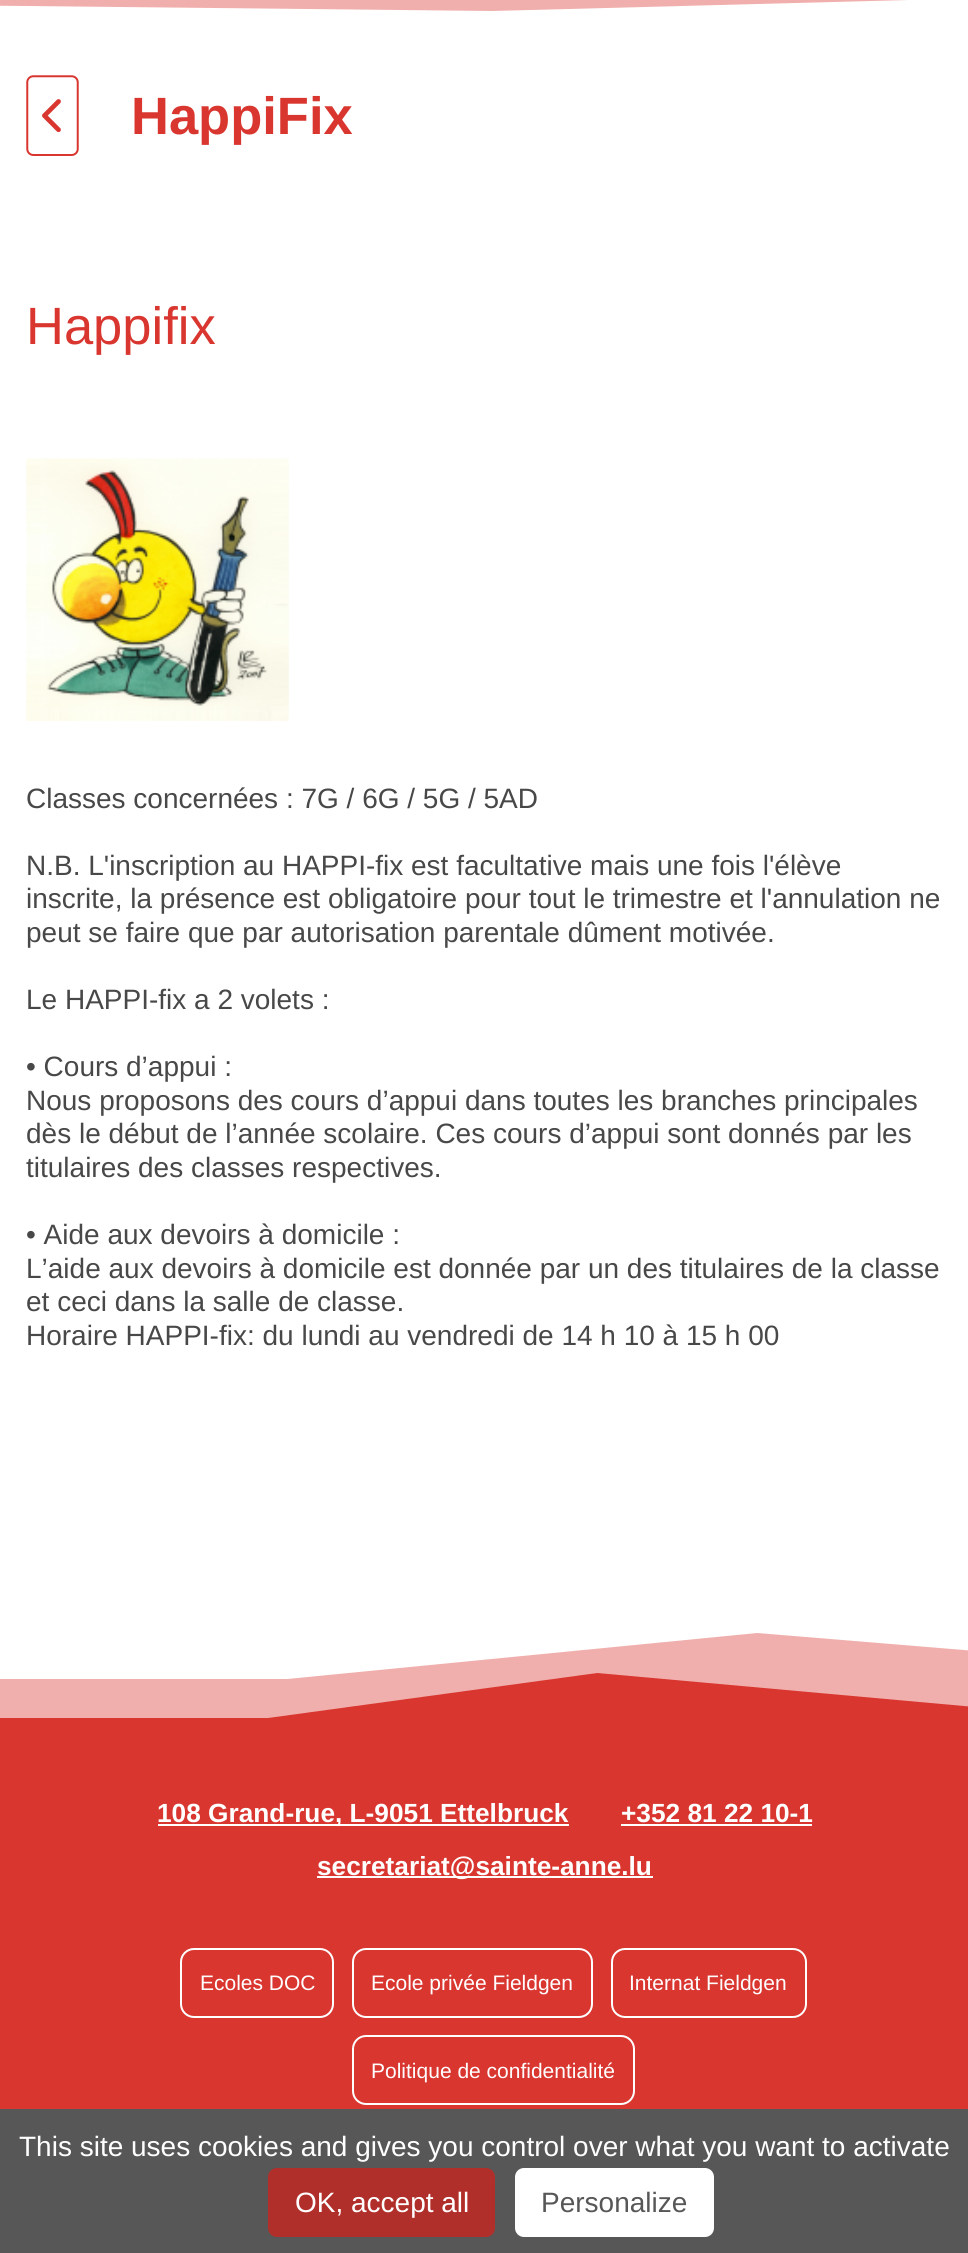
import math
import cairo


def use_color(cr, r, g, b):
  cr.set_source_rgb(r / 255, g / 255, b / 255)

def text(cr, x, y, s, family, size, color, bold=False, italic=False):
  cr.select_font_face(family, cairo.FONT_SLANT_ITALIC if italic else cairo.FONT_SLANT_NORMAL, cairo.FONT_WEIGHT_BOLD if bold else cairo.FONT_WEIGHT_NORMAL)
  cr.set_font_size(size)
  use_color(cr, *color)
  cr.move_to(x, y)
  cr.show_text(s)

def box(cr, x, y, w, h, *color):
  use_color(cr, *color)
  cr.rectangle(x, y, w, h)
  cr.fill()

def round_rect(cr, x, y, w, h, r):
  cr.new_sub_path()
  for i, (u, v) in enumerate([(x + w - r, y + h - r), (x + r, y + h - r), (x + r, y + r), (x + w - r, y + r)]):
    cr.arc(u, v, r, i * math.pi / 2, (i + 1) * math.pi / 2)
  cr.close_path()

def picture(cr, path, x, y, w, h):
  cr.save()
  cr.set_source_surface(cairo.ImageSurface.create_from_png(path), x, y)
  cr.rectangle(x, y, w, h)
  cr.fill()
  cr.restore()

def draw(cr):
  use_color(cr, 255, 255, 255)
  cr.paint()
  use_color(cr, 240, 175, 172)
  cr.new_path()
  cr.move_to(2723, -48)
  cr.line_to(492, 11)
  cr.line_to(-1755, -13)
  cr.line_to(-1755, -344)
  cr.line_to(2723, -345)
  cr.close_path()
  cr.fill()
  picture(cr, "img_01.png", 26, 75, 53, 81)
  picture(cr, "img_02.png", 26, 458, 263, 263)
  cr.save()
  cr.rectangle(0, 1633, 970, 87)
  cr.clip()
  cr.new_path()
  cr.move_to(-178, 1679)
  cr.line_to(287, 1679)
  cr.line_to(757, 1633)
  cr.line_to(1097, 1661)
  cr.line_to(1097, 1948)
  cr.line_to(-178, 1948)
  cr.close_path()
  cr.fill()
  use_color(cr, 217, 54, 48)
  cr.new_path()
  cr.move_to(-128, 1718)
  cr.line_to(268, 1718)
  cr.line_to(597, 1673)
  cr.line_to(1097, 1718)
  cr.line_to(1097, 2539)
  cr.line_to(-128, 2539)
  cr.close_path()
  cr.fill()
  cr.restore()
  box(cr, 0, 1720, 968, 389, 217, 54, 48)
  box(cr, 158, 1824, 411, 2, 255, 255, 255)
  box(cr, 621, 1824, 191, 2, 255, 255, 255)
  box(cr, 317, 1876, 336, 2, 255, 255, 255)
  round_rect(cr, 181, 1949, 152, 68, 13)
  cr.stroke()
  round_rect(cr, 353, 1949, 239, 68, 13)
  cr.stroke()
  round_rect(cr, 612, 1949, 194, 68, 13)
  cr.stroke()
  round_rect(cr, 353, 2036, 281, 68, 13)
  cr.stroke()
  box(cr, 0, 2109, 968, 144, 86, 87, 86)
  use_color(cr, 177, 47, 42)
  round_rect(cr, 268, 2168, 227, 69, 9)
  cr.fill()
  use_color(cr, 255, 255, 255)
  round_rect(cr, 515, 2168, 199, 69, 9)
  cr.fill()
  text(cr, 131, 134, "HappiFix", "Liberation Sans", 52.5, (217, 54, 48), bold=True)
  text(cr, 26, 344, "Happifix", "Liberation Sans", 52.5, (217, 54, 48))
  text(cr, 26, 808, "Classes concernées : 7G / 6G / 5G / 5AD", "Liberation Sans", 28, (72, 72, 72))
  text(cr, 26, 875, "N.B. L'inscription au HAPPI-fix est facultative mais une fois l'élève", "Liberation Sans", 28, (72, 72, 72))
  text(cr, 26, 908, "inscrite, la présence est obligatoire pour tout le trimestre et l'annulation ne", "Liberation Sans", 28, (72, 72, 72))
  text(cr, 26, 942, "peut se faire que par autorisation parentale dûment motivée.", "Liberation Sans", 28, (72, 72, 72))
  text(cr, 26, 1009, "Le HAPPI-fix a 2 volets :", "Liberation Sans", 28, (72, 72, 72))
  text(cr, 26, 1076, "• Cours d’appui :", "Liberation Sans", 28, (72, 72, 72))
  text(cr, 26, 1110, "Nous proposons des cours d’appui dans toutes les branches principales", "Liberation Sans", 28, (72, 72, 72))
  text(cr, 26, 1143, "dès le début de l’année scolaire. Ces cours d’appui sont donnés par les", "Liberation Sans", 28, (72, 72, 72))
  text(cr, 26, 1177, "titulaires des classes respectives.", "Liberation Sans", 28, (72, 72, 72))
  text(cr, 26, 1244, "• Aide aux devoirs à domicile :", "Liberation Sans", 28, (72, 72, 72))
  text(cr, 26, 1278, "L’aide aux devoirs à domicile est donnée par un des titulaires de la classe", "Liberation Sans", 28, (72, 72, 72))
  text(cr, 26, 1311, "et ceci dans la salle de classe.", "Liberation Sans", 28, (72, 72, 72))
  text(cr, 26, 1345, "Horaire HAPPI-fix: du lundi au vendredi de 14 h 10 à 15 h 00", "Liberation Sans", 28, (72, 72, 72))
  text(cr, 157, 1822, "108 Grand-rue, L-9051 Ettelbruck", "Liberation Sans", 26.25, (255, 255, 255), bold=True)
  text(cr, 621, 1822, "+352 81 22 10-1", "Liberation Sans", 26.25, (255, 255, 255), bold=True)
  text(cr, 317, 1875, "secretariat@sainte-anne.lu", "Liberation Sans", 26.25, (255, 255, 255), bold=True)
  text(cr, 200, 1990, "Ecoles DOC", "Liberation Sans", 21, (255, 255, 255))
  text(cr, 371, 1990, "Ecole privée Fieldgen", "Liberation Sans", 21, (255, 255, 255))
  text(cr, 629, 1990, "Internat Fieldgen", "Liberation Sans", 21, (255, 255, 255))
  text(cr, 371, 2078, "Politique de confidentialité", "Liberation Sans", 21, (255, 255, 255))
  text(cr, 19, 2156, "This site uses cookies and gives you control over what you want to activate", "Liberation Sans", 28, (255, 255, 255))
  text(cr, 295, 2212, "OK, accept all", "Liberation Sans", 28, (255, 255, 255))
  text(cr, 541, 2212, "Personalize", "Liberation Sans", 28, (86, 87, 86))


surface = cairo.ImageSurface(cairo.FORMAT_RGB24, 968, 2253)
cr = cairo.Context(surface)
options = cairo.FontOptions()
options.set_hint_metrics(cairo.HINT_METRICS_OFF)
options.set_hint_style(cairo.HINT_STYLE_NONE)
cr.set_font_options(options)
cr.set_miter_limit(4)
draw(cr)
surface.write_to_png("out.png")
